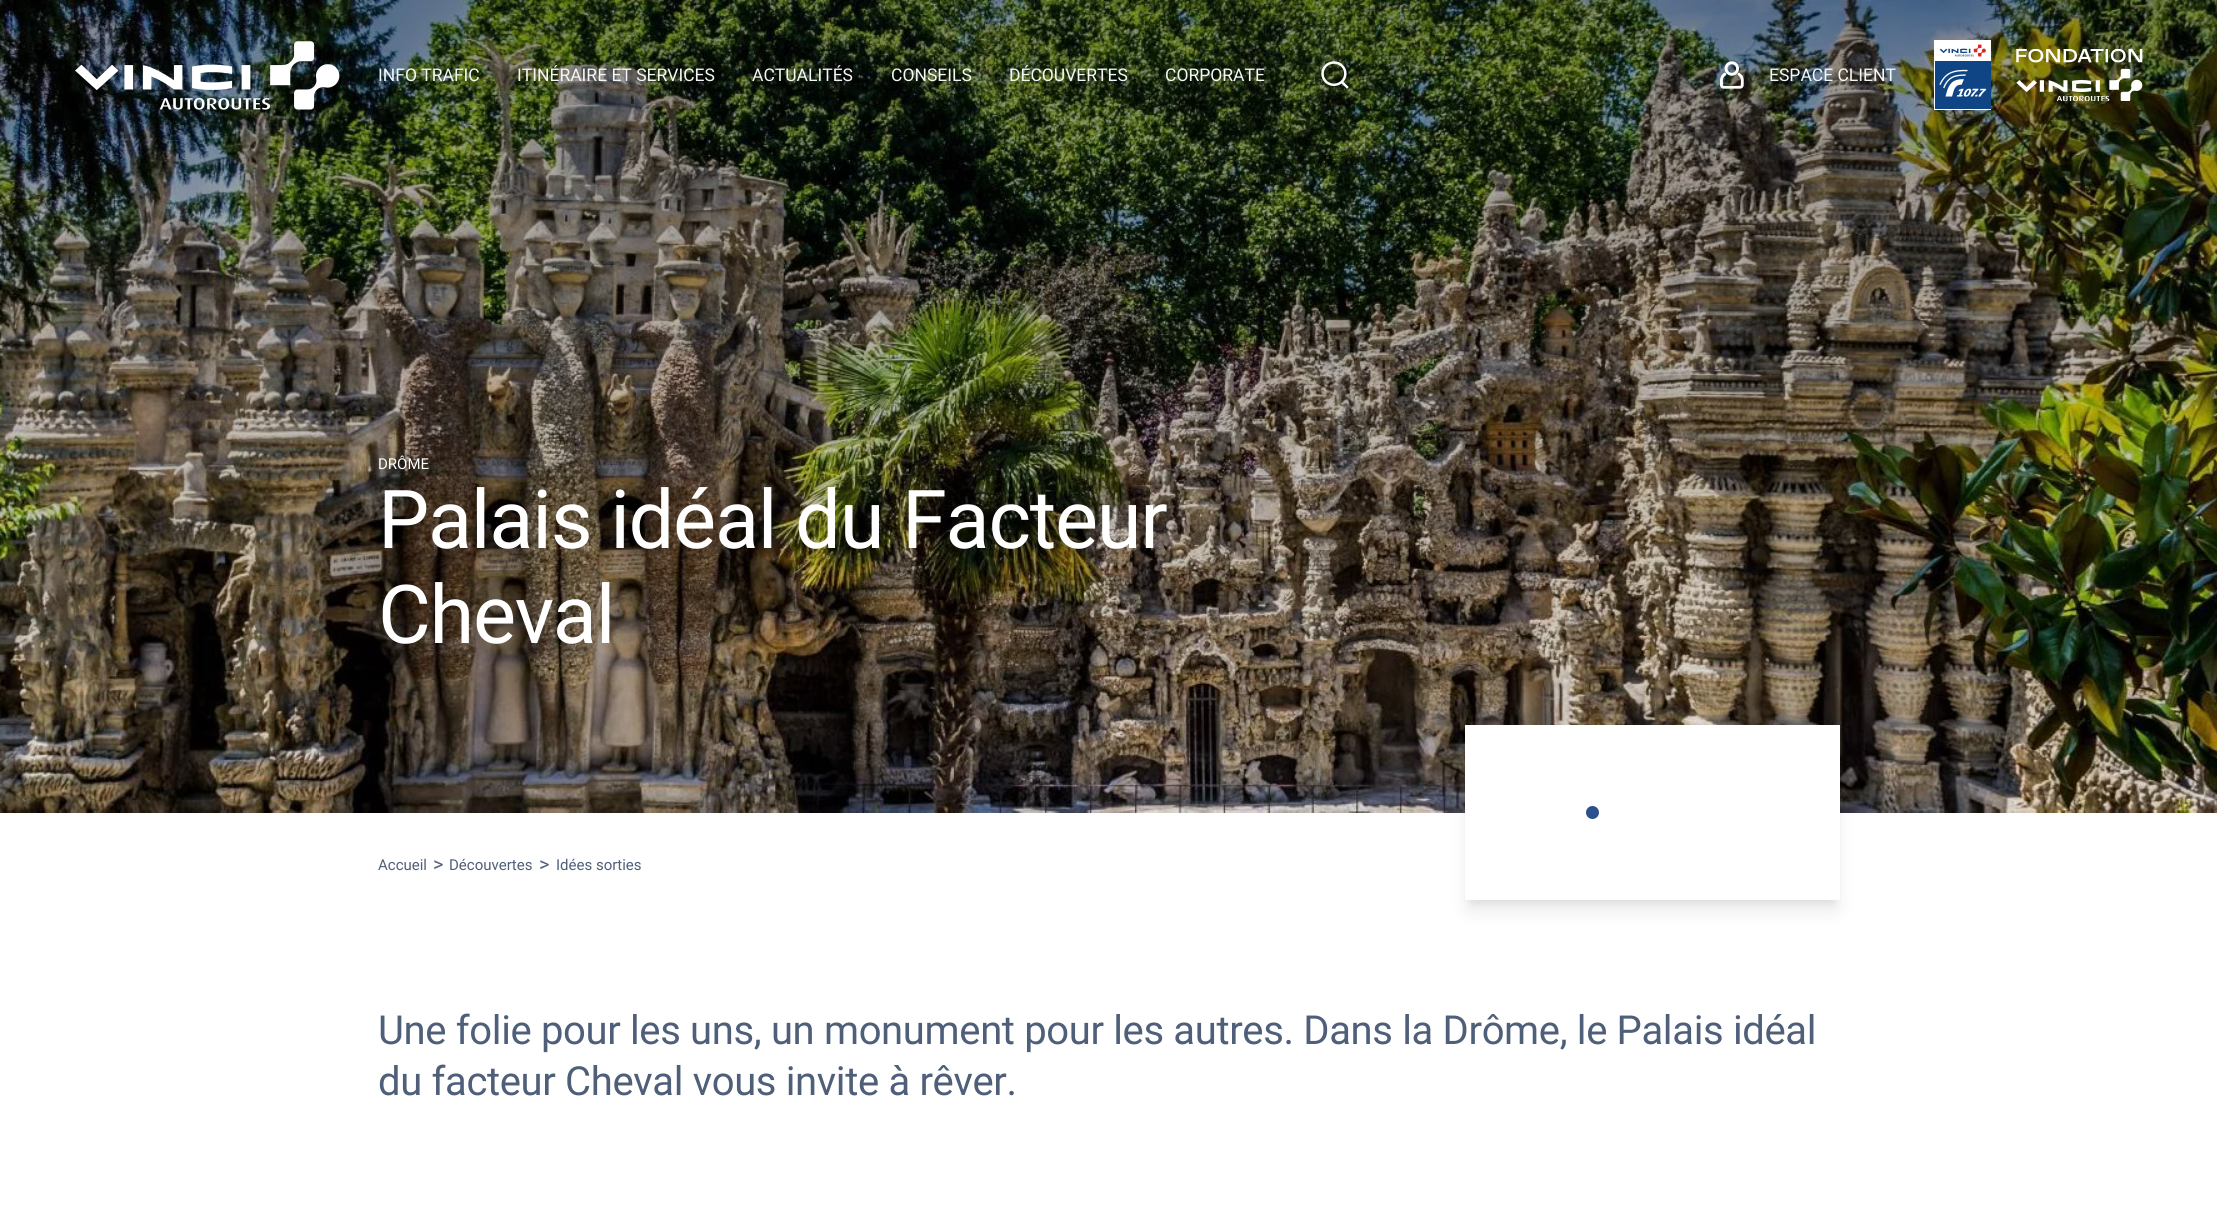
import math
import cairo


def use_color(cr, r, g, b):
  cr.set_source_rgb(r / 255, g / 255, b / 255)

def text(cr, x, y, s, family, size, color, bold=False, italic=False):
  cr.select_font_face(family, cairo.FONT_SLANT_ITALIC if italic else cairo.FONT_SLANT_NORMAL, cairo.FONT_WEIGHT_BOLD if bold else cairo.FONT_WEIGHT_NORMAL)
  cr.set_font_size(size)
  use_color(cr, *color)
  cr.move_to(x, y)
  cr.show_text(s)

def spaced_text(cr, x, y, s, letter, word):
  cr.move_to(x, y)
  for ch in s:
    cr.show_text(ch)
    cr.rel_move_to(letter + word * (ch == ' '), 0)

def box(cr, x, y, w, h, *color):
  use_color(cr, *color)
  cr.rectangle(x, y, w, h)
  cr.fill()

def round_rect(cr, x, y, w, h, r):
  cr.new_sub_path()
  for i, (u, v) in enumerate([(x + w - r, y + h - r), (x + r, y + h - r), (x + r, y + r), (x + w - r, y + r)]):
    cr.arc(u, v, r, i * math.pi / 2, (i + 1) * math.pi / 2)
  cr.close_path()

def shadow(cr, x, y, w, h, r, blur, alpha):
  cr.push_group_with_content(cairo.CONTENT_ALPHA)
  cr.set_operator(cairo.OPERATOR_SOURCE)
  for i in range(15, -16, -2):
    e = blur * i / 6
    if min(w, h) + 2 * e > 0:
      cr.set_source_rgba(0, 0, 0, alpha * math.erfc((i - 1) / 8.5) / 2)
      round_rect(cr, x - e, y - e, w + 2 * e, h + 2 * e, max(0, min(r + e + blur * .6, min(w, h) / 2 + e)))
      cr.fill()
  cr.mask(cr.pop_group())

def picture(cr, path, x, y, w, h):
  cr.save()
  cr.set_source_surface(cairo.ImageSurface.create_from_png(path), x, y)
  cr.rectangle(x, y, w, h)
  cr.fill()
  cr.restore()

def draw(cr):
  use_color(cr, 255, 255, 255)
  cr.paint()
  picture(cr, "img_06.png", 0, 0, 2217, 813)
  picture(cr, "img_01.png", 75, 41, 265, 69)
  picture(cr, "img_02.png", 1321, 61, 28, 28)
  picture(cr, "img_03.png", 1720, 61, 24, 28)
  picture(cr, "img_04.png", 1934, 40, 57, 70)
  picture(cr, "img_05.png", 2016, 49, 127, 52)
  use_color(cr, 0, 0, 0)
  shadow(cr, 1470, 735, 365, 165, 0, 4, 0.1)
  shadow(cr, 1469, 741, 367, 168, 0, 9.5, 0.1)
  box(cr, 1465, 725, 375, 175, 255, 255, 255)
  use_color(cr, 42, 80, 144)
  cr.arc(1592.5, 812.5, 6.5, 0, 2 * math.pi)
  cr.fill()
  text(cr, 378, 81, "INFO TRAFIC", "Roboto", 17.5, (245, 246, 245))
  text(cr, 517, 81, "ITINÉRAIRE ET SERVICES", "Roboto", 17.5, (245, 246, 245))
  text(cr, 752, 81, "ACTUALITÉS", "Roboto", 17.5, (245, 246, 245))
  text(cr, 891, 81, "CONSEILS", "Roboto", 17.5, (245, 246, 245))
  text(cr, 1009, 81, "DÉCOUVERTES", "Roboto", 17.5, (245, 246, 245))
  text(cr, 1165, 81, "CORPORATE", "Roboto", 17.5, (245, 246, 245))
  text(cr, 1769, 81, "ESPACE CLIENT", "Roboto", 17.5, (245, 246, 245))
  text(cr, 378, 469, "DRÔME", "Roboto", 15, (255, 255, 255))
  cr.set_font_size(81.25)
  spaced_text(cr, 378, 548, "Palais idéal du Facteur", -1.3, 0)
  spaced_text(cr, 378, 643, "Cheval", -1.3, 0)
  text(cr, 378, 870, "Accueil", "Roboto", 15, (79, 95, 122))
  text(cr, 433, 871, ">", "Roboto", 20, (79, 95, 122))
  text(cr, 449, 870, "Découvertes", "Roboto", 15, (79, 95, 122))
  text(cr, 539, 871, ">", "Roboto", 20, (79, 95, 122))
  text(cr, 556, 870, "Idées sorties", "Roboto", 15, (79, 95, 122))
  cr.set_font_size(40)
  spaced_text(cr, 378, 1044, "Une folie pour les uns, un monument pour les autres. Dans la Drôme, le Palais idéal", -0.35, 0)
  spaced_text(cr, 378, 1095, "du facteur Cheval vous invite à rêver.", -0.35, 0)


surface = cairo.ImageSurface(cairo.FORMAT_RGB24, 2217, 1221)
cr = cairo.Context(surface)
options = cairo.FontOptions()
options.set_hint_metrics(cairo.HINT_METRICS_OFF)
options.set_hint_style(cairo.HINT_STYLE_NONE)
cr.set_font_options(options)
cr.set_miter_limit(4)
draw(cr)
surface.write_to_png("out.png")
